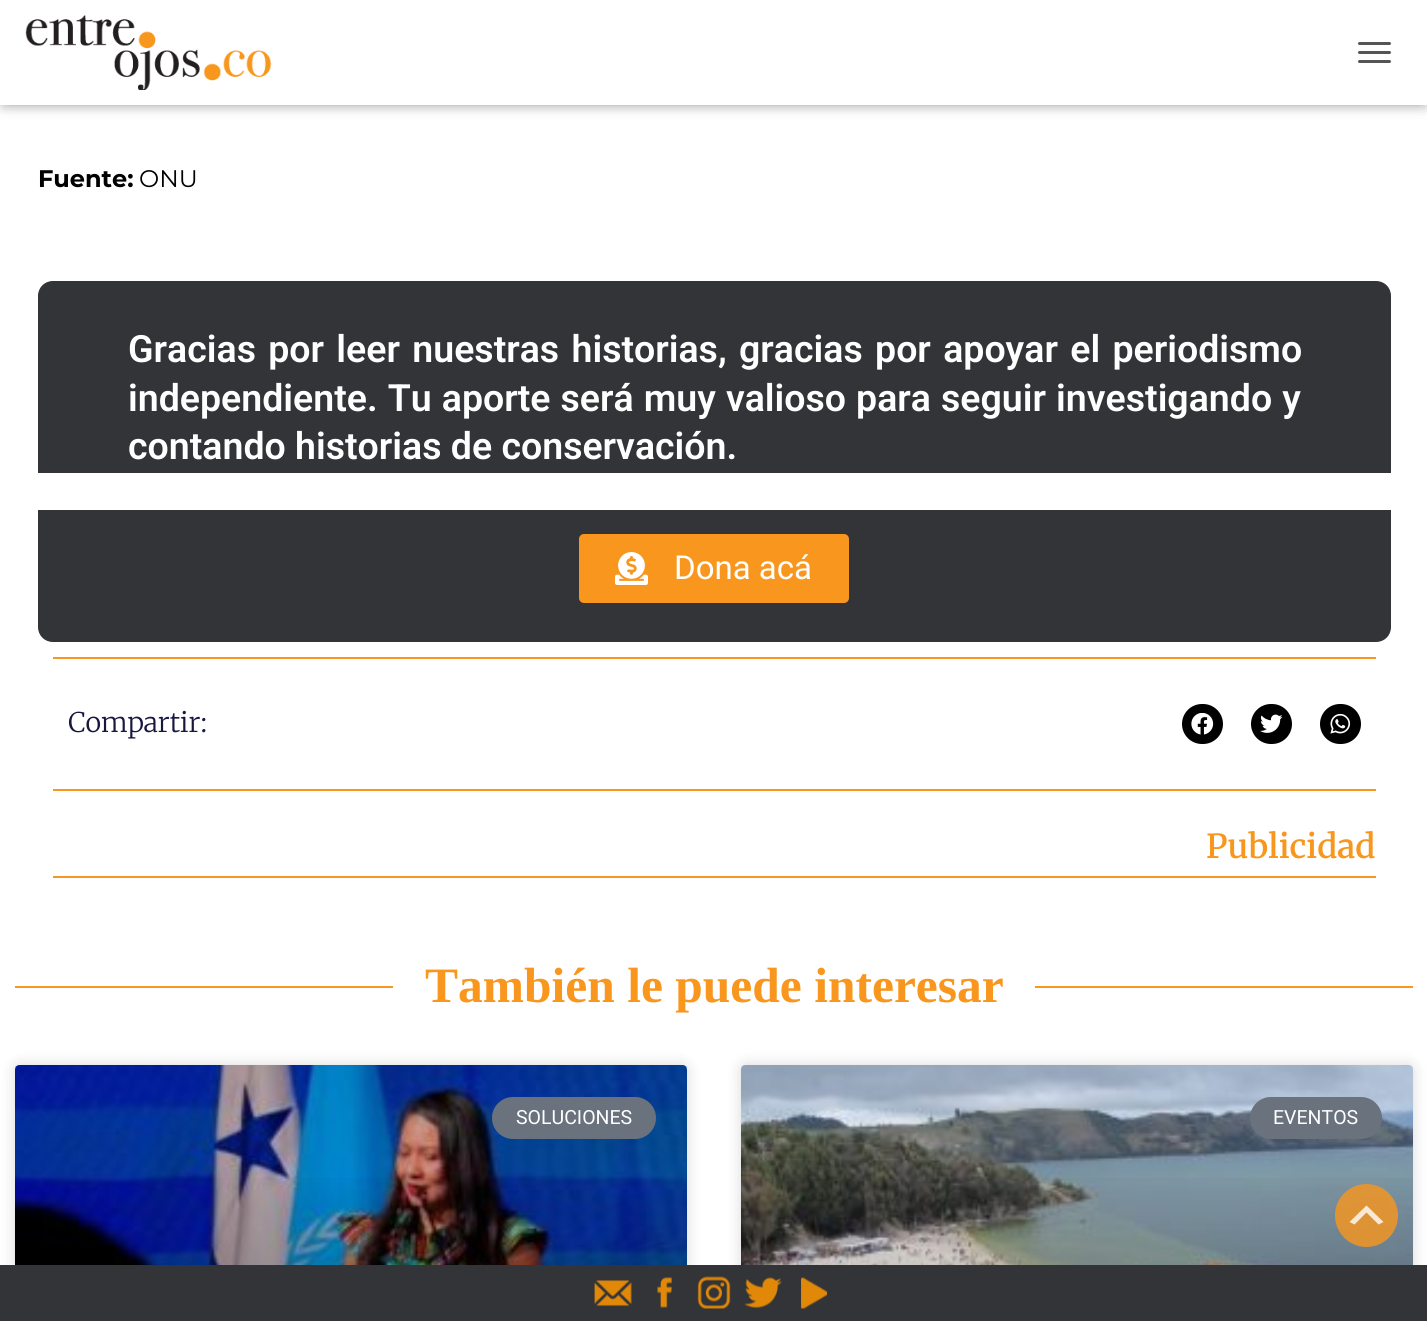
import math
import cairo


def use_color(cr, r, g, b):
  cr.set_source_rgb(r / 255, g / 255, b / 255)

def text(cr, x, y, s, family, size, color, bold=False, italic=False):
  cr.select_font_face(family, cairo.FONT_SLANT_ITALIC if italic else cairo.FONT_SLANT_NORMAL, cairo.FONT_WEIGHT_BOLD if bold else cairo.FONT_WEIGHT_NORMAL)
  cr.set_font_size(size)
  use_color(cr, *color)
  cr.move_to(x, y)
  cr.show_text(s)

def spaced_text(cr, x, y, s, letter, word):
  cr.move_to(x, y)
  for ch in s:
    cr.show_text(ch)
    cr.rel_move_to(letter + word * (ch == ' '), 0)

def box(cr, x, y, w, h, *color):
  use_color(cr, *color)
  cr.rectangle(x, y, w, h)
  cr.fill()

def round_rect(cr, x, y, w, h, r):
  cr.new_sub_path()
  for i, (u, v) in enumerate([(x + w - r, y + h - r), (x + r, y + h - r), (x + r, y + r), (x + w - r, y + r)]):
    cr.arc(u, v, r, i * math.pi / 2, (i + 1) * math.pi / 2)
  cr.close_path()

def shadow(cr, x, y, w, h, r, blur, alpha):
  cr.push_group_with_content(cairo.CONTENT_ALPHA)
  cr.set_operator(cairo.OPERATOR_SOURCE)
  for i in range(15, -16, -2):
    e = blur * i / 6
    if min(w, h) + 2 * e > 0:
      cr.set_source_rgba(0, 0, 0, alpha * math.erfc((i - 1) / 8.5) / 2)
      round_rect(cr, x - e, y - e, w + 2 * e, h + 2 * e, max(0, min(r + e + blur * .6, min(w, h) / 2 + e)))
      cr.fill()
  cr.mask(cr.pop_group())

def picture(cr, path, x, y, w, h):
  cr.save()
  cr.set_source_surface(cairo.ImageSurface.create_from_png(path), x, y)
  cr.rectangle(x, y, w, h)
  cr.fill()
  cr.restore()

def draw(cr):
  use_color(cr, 255, 255, 255)
  cr.paint()
  use_color(cr, 0, 0, 0)
  shadow(cr, 3, 9, 1422, 99, 0, 4, 0.1)
  shadow(cr, 0, 2, 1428, 105, 0, 7.5, 0.12)
  shadow(cr, 9, 11, 1410, 87, 0, 7.5, 0.42)
  box(cr, 0, 0, 1427, 105, 255, 255, 255)
  picture(cr, "img_01.png", 25, 15, 247, 75)
  use_color(cr, 85, 85, 85)
  round_rect(cr, 1358, 42, 33, 3, 1.5)
  cr.fill()
  round_rect(cr, 1358, 51, 33, 3, 1.5)
  cr.fill()
  round_rect(cr, 1358, 60, 33, 3, 1.5)
  cr.fill()
  use_color(cr, 50, 52, 55)
  cr.new_path()
  cr.move_to(53, 281)
  cr.line_to(1376, 281)
  cr.curve_to(1384.5, 281, 1391, 287.5, 1391, 296)
  cr.line_to(1391, 473)
  cr.line_to(38, 473)
  cr.line_to(38, 296)
  cr.curve_to(38, 287.5, 44.5, 281, 53, 281)
  cr.close_path()
  cr.fill()
  cr.new_path()
  cr.move_to(38, 510)
  cr.line_to(1391, 510)
  cr.line_to(1391, 627)
  cr.curve_to(1391, 635.5, 1384.5, 642, 1376, 642)
  cr.line_to(53, 642)
  cr.curve_to(44.5, 642, 38, 635.5, 38, 627)
  cr.close_path()
  cr.fill()
  use_color(cr, 248, 150, 29)
  round_rect(cr, 579, 534, 270, 69, 5)
  cr.fill()
  picture(cr, "img_02.png", 615, 552, 33, 33)
  box(cr, 53, 657, 1323, 2, 248, 150, 29)
  box(cr, 53, 789, 1323, 2, 248, 150, 29)
  use_color(cr, 0, 0, 0)
  round_rect(cr, 1182, 704, 41, 40, 20)
  cr.fill()
  picture(cr, "img_03.png", 1191, 713, 23, 22)
  round_rect(cr, 1251, 704, 41, 40, 20)
  cr.fill()
  picture(cr, "img_04.png", 1260, 714, 23, 19)
  round_rect(cr, 1320, 704, 41, 40, 20)
  cr.fill()
  picture(cr, "img_05.png", 1330, 713, 21, 21)
  box(cr, 53, 876, 1323, 2, 248, 150, 29)
  box(cr, 15, 986, 378, 2, 248, 150, 29)
  box(cr, 1035, 986, 378, 2, 248, 150, 29)
  use_color(cr, 0, 0, 0)
  shadow(cr, 15, 1065, 672, 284, 5, 7.5, 0.15)
  picture(cr, "img_06.png", 15, 1065, 672, 200)
  gradient = cairo.LinearGradient(351, 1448, 351, 1065)
  gradient.add_color_stop_rgba(0, 0, 0, 0, 0.35)
  gradient.add_color_stop_rgba(0.75, 0, 0, 0, 0)
  cr.set_source(gradient)
  cr.rectangle(15, 1178, 672, 87)
  cr.fill()
  use_color(cr, 105, 114, 125)
  round_rect(cr, 492, 1097, 164, 42, 21)
  cr.fill()
  use_color(cr, 0, 0, 0)
  shadow(cr, 741, 1065, 672, 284, 5, 7.5, 0.15)
  picture(cr, "img_07.png", 741, 1065, 672, 200)
  gradient = cairo.LinearGradient(1077, 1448, 1077, 1065)
  gradient.add_color_stop_rgba(0, 0, 0, 0, 0.35)
  gradient.add_color_stop_rgba(0.75, 0, 0, 0, 0)
  cr.set_source(gradient)
  cr.rectangle(741, 1178, 672, 87)
  cr.fill()
  use_color(cr, 105, 114, 125)
  round_rect(cr, 1250, 1097, 132, 42, 21)
  cr.fill()
  box(cr, 0, 1265, 1427, 56, 50, 52, 55)
  picture(cr, "img_08.png", 594, 1280, 38, 27)
  picture(cr, "img_09.png", 657, 1277, 15, 31)
  picture(cr, "img_10.png", 697, 1276, 34, 33)
  picture(cr, "img_11.png", 744, 1277, 38, 31)
  picture(cr, "img_12.png", 801, 1277, 27, 32)
  cr.set_source_rgba(0.973, 0.588, 0.114, 0.8)
  cr.arc(1366.5, 1215.5, 31.5, 0, 2 * math.pi)
  cr.fill()
  use_color(cr, 248, 233, 215)
  cr.new_path()
  cr.move_to(1378.5, 1224.5)
  cr.line_to(1366.5, 1212.5)
  cr.line_to(1354.5, 1224.5)
  cr.line_to(1349.5, 1222)
  cr.line_to(1366.5, 1205.5)
  cr.line_to(1383.5, 1222)
  cr.close_path()
  cr.fill()
  text(cr, 38, 187, "Fuente:", "Montserrat", 24, (0, 0, 0), bold=True)
  text(cr, 139, 187, "ONU", "Montserrat", 24, (0, 0, 0))
  cr.select_font_face("Roboto SemiBold")
  cr.set_font_size(37.5)
  use_color(cr, 255, 255, 255)
  spaced_text(cr, 128, 362, "Gracias por leer nuestras historias, gracias por apoyar el periodismo", 0, 3)
  spaced_text(cr, 128, 411, "independiente. Tu aporte será muy valioso para seguir investigando y", 0, 0.75)
  text(cr, 128, 459, "contando historias de conservación.", "Roboto SemiBold", 37.5, (255, 255, 255))
  text(cr, 674, 579, "Dona acá", "Roboto", 33, (255, 255, 255))
  text(cr, 68, 732, "Compartir:", "Merriweather Light", 27, (22, 22, 63))
  text(cr, 1206, 858, "Publicidad", "Merriweather SemiBold", 33, (248, 150, 29))
  text(cr, 425, 1002, "También le puede interesar", "Liberation Serif", 49.5, (248, 150, 29), bold=True)
  text(cr, 516, 1124, "SOLUCIONES", "Roboto", 19.5, (255, 255, 255))
  text(cr, 1273, 1124, "EVENTOS", "Roboto", 19.5, (255, 255, 255))


surface = cairo.ImageSurface(cairo.FORMAT_RGB24, 1427, 1321)
cr = cairo.Context(surface)
options = cairo.FontOptions()
options.set_hint_metrics(cairo.HINT_METRICS_OFF)
options.set_hint_style(cairo.HINT_STYLE_NONE)
cr.set_font_options(options)
cr.set_miter_limit(4)
draw(cr)
surface.write_to_png("out.png")
